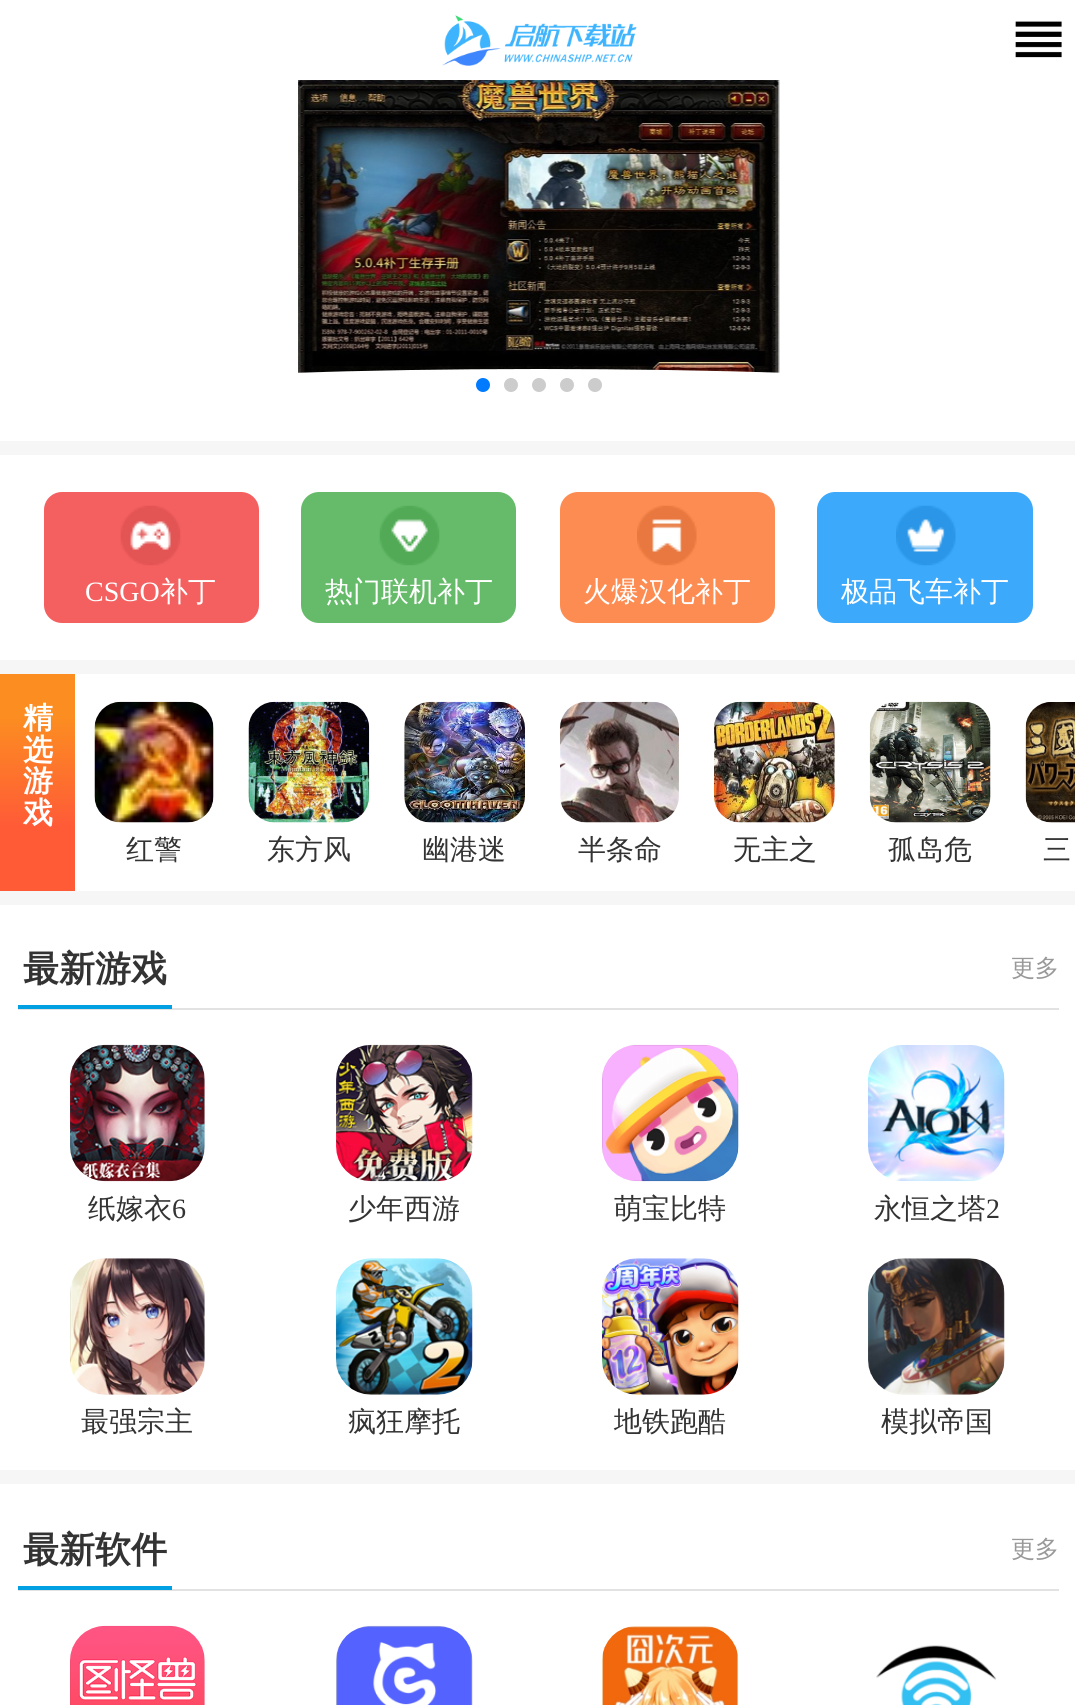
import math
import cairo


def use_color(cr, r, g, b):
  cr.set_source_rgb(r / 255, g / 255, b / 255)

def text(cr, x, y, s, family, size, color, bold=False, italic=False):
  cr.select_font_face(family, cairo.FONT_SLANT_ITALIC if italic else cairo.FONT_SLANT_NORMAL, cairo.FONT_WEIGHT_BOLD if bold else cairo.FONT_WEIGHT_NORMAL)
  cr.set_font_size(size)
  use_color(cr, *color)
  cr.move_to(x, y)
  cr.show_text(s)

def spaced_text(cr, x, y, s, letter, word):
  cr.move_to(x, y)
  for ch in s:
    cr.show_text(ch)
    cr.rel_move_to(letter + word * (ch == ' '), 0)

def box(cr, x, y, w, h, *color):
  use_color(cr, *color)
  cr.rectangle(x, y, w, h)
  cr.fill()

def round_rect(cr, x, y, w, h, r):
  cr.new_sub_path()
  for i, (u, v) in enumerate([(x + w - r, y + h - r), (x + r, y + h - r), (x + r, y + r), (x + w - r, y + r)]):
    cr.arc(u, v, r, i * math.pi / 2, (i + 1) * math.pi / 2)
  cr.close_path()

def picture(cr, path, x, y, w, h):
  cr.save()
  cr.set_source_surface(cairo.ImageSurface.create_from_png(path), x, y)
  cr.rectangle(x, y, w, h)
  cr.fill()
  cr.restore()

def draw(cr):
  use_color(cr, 255, 255, 255)
  cr.paint()
  picture(cr, "img_01.png", 442, 15, 195, 51)
  picture(cr, "img_02.png", 1015, 21, 47, 37)
  box(cr, 0, 441, 1075, 14, 246, 246, 246)
  picture(cr, "img_03.png", 298, 80, 482, 293)
  cr.save()
  cr.rectangle(0, 81, 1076, 360)
  cr.clip()
  use_color(cr, 255, 255, 255)
  cr.new_path()
  cr.move_to(539, 369)
  cr.curve_to(896, 369, 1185, 392, 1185, 419)
  cr.line_to(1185, 469)
  cr.line_to(-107, 469)
  cr.line_to(-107, 419)
  cr.curve_to(-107, 392, 182, 369, 539, 369)
  cr.close_path()
  cr.fill()
  cr.restore()
  use_color(cr, 0, 122, 255)
  cr.arc(483, 385, 7, 0, 2 * math.pi)
  cr.fill()
  use_color(cr, 204, 204, 204)
  cr.arc(511, 385, 7, 0, 2 * math.pi)
  cr.fill()
  cr.arc(539, 385, 7, 0, 2 * math.pi)
  cr.fill()
  cr.arc(567, 385, 7, 0, 2 * math.pi)
  cr.fill()
  cr.arc(595, 385, 7, 0, 2 * math.pi)
  cr.fill()
  box(cr, 0, 660, 1075, 14, 246, 246, 246)
  use_color(cr, 244, 96, 96)
  round_rect(cr, 44, 492, 215, 131, 18)
  cr.fill()
  picture(cr, "img_04.png", 120, 505, 61, 61)
  use_color(cr, 102, 187, 106)
  round_rect(cr, 301, 492, 215, 131, 18)
  cr.fill()
  picture(cr, "img_05.png", 379, 505, 61, 61)
  use_color(cr, 253, 140, 82)
  round_rect(cr, 560, 492, 215, 131, 18)
  cr.fill()
  picture(cr, "img_06.png", 637, 505, 60, 61)
  use_color(cr, 60, 169, 251)
  round_rect(cr, 817, 492, 216, 131, 18)
  cr.fill()
  picture(cr, "img_07.png", 896, 505, 60, 61)
  box(cr, 0, 891, 1075, 14, 246, 246, 246)
  gradient = cairo.LinearGradient(38, 674, 38, 891)
  gradient.add_color_stop_rgba(0.2, 0.988, 0.553, 0.129, 1)
  gradient.add_color_stop_rgba(0.7, 1, 0.357, 0.216, 1)
  cr.set_source(gradient)
  cr.rectangle(0, 674, 75, 217)
  cr.fill()
  picture(cr, "img_08.png", 94, 701, 120, 122)
  picture(cr, "img_09.png", 248, 701, 122, 122)
  picture(cr, "img_10.png", 404, 701, 121, 122)
  picture(cr, "img_11.png", 560, 701, 119, 122)
  picture(cr, "img_12.png", 714, 701, 121, 122)
  picture(cr, "img_13.png", 869, 701, 122, 122)
  picture(cr, "img_14.png", 1025, 702, 50, 121)
  box(cr, 0, 1470, 1075, 14, 246, 246, 246)
  box(cr, 18, 1008, 1041, 2, 226, 226, 226)
  box(cr, 18, 1005, 154, 4, 1, 160, 226)
  picture(cr, "img_15.png", 70, 1044, 135, 138)
  picture(cr, "img_16.png", 336, 1044, 137, 138)
  picture(cr, "img_17.png", 602, 1044, 137, 138)
  picture(cr, "img_18.png", 868, 1045, 137, 137)
  picture(cr, "img_19.png", 70, 1258, 135, 137)
  picture(cr, "img_20.png", 336, 1258, 137, 137)
  picture(cr, "img_21.png", 602, 1258, 137, 137)
  picture(cr, "img_22.png", 868, 1258, 137, 137)
  box(cr, 18, 1589, 1041, 2, 226, 226, 226)
  box(cr, 18, 1586, 154, 4, 1, 160, 226)
  picture(cr, "img_23.png", 70, 1625, 135, 80)
  picture(cr, "img_24.png", 336, 1625, 137, 80)
  picture(cr, "img_25.png", 602, 1626, 137, 79)
  picture(cr, "img_26.png", 876, 1645, 121, 60)
  text(cr, 85, 601, "CSGO", "Liberation Serif", 28, (255, 255, 255))
  text(cr, 160, 601, "补丁", "WenQuanYi Zen Hei Medium", 28, (255, 255, 255))
  text(cr, 325, 601, "热门联机补丁", "WenQuanYi Zen Hei Medium", 28, (255, 255, 255))
  text(cr, 583, 601, "火爆汉化补丁", "WenQuanYi Zen Hei Medium", 28, (255, 255, 255))
  text(cr, 841, 601, "极品飞车补丁", "WenQuanYi Zen Hei Medium", 28, (255, 255, 255))
  cr.select_font_face("WenQuanYi Zen Hei", cairo.FONT_SLANT_NORMAL, cairo.FONT_WEIGHT_BOLD)
  cr.set_font_size(30)
  spaced_text(cr, 23, 728, "精", 12, 0)
  spaced_text(cr, 23, 760, "选", 12, 0)
  spaced_text(cr, 23, 791, "游", 12, 0)
  spaced_text(cr, 23, 823, "戏", 12, 0)
  text(cr, 126, 859, "红警", "WenQuanYi Zen Hei Medium", 28, (51, 51, 51))
  text(cr, 267, 859, "东方风", "WenQuanYi Zen Hei Medium", 28, (51, 51, 51))
  text(cr, 422, 859, "幽港迷", "WenQuanYi Zen Hei Medium", 28, (51, 51, 51))
  text(cr, 578, 859, "半条命", "WenQuanYi Zen Hei Medium", 28, (51, 51, 51))
  text(cr, 733, 859, "无主之", "WenQuanYi Zen Hei Medium", 28, (51, 51, 51))
  text(cr, 888, 859, "孤岛危", "WenQuanYi Zen Hei Medium", 28, (51, 51, 51))
  text(cr, 1043, 859, "三", "WenQuanYi Zen Hei Medium", 28, (51, 51, 51))
  text(cr, 23, 981, "最新游戏", "WenQuanYi Zen Hei", 36, (51, 51, 51), bold=True)
  text(cr, 1011, 976, "更多", "WenQuanYi Zen Hei Medium", 24, (153, 153, 153))
  text(cr, 88, 1218, "纸嫁衣", "WenQuanYi Zen Hei Medium", 28, (51, 51, 51))
  text(cr, 172, 1218, "6", "Liberation Serif", 28, (51, 51, 51))
  text(cr, 348, 1218, "少年西游", "WenQuanYi Zen Hei Medium", 28, (51, 51, 51))
  text(cr, 614, 1218, "萌宝比特", "WenQuanYi Zen Hei Medium", 28, (51, 51, 51))
  text(cr, 874, 1218, "永恒之塔", "WenQuanYi Zen Hei Medium", 28, (51, 51, 51))
  text(cr, 986, 1218, "2", "Liberation Serif", 28, (51, 51, 51))
  text(cr, 81, 1431, "最强宗主", "WenQuanYi Zen Hei Medium", 28, (51, 51, 51))
  text(cr, 348, 1431, "疯狂摩托", "WenQuanYi Zen Hei Medium", 28, (51, 51, 51))
  text(cr, 614, 1431, "地铁跑酷", "WenQuanYi Zen Hei Medium", 28, (51, 51, 51))
  text(cr, 881, 1431, "模拟帝国", "WenQuanYi Zen Hei Medium", 28, (51, 51, 51))
  text(cr, 23, 1562, "最新软件", "WenQuanYi Zen Hei", 36, (51, 51, 51), bold=True)
  text(cr, 1011, 1557, "更多", "WenQuanYi Zen Hei Medium", 24, (153, 153, 153))


surface = cairo.ImageSurface(cairo.FORMAT_RGB24, 1075, 1705)
cr = cairo.Context(surface)
options = cairo.FontOptions()
options.set_hint_metrics(cairo.HINT_METRICS_OFF)
options.set_hint_style(cairo.HINT_STYLE_NONE)
cr.set_font_options(options)
cr.set_miter_limit(4)
draw(cr)
surface.write_to_png("out.png")
